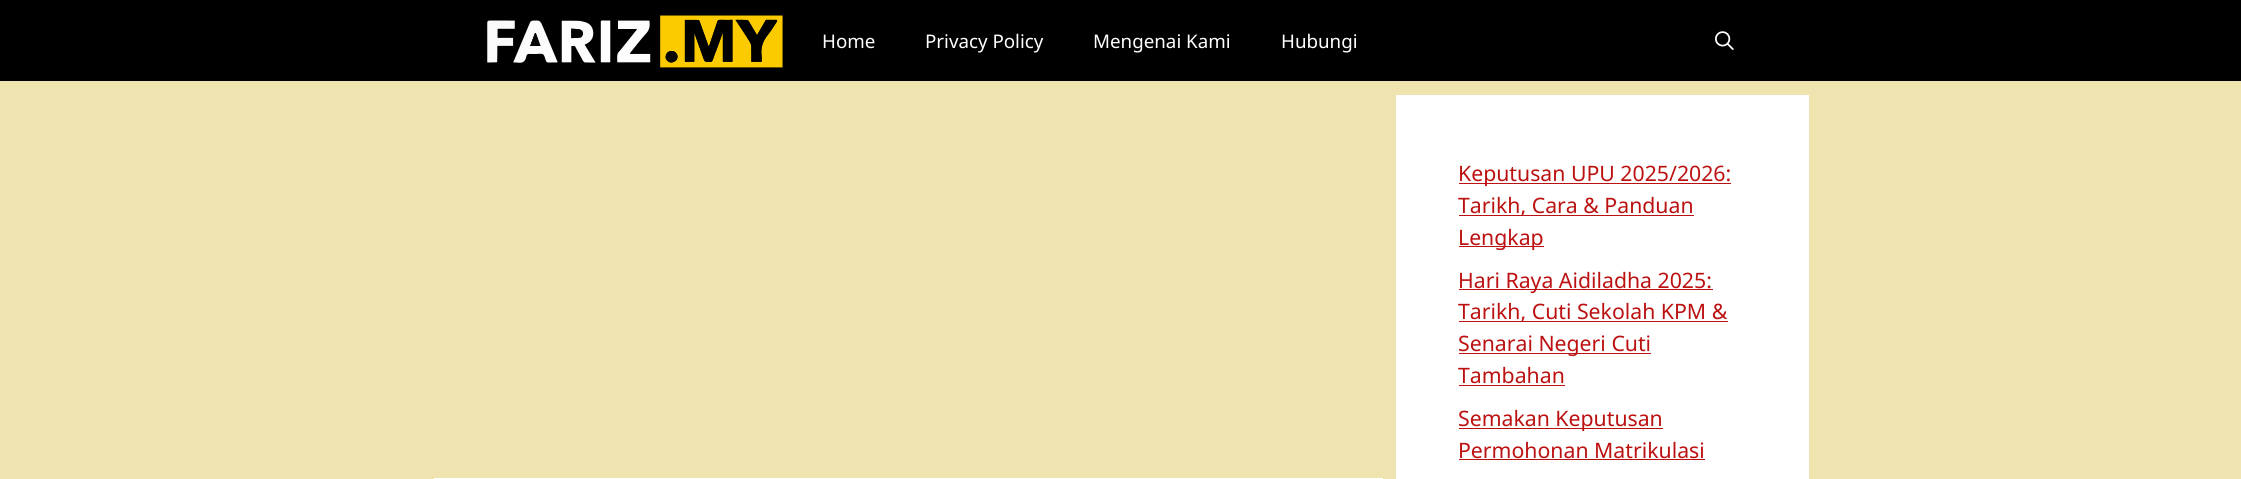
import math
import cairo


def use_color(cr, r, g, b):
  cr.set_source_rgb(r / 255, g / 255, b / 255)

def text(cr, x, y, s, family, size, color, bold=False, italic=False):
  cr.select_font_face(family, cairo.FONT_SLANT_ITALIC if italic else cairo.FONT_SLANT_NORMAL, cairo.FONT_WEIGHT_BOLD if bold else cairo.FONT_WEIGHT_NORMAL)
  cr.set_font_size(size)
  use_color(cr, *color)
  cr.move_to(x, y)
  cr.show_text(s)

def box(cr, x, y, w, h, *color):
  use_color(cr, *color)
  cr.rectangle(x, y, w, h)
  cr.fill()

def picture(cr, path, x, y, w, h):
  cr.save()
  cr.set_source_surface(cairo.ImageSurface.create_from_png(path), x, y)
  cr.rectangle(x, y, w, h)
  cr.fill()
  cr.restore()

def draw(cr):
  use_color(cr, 239, 228, 175)
  cr.paint()
  box(cr, 0, 0, 2241, 81, 0, 0, 0)
  picture(cr, "img_01.png", 487, 15, 296, 53)
  picture(cr, "img_02.png", 1715, 31, 19, 19)
  box(cr, 1396, 95, 413, 384, 255, 255, 255)
  box(cr, 1459, 183, 272, 1, 188, 17, 17)
  box(cr, 1459, 215, 235, 1, 188, 17, 17)
  box(cr, 1459, 246, 85, 1, 188, 17, 17)
  box(cr, 1459, 289, 254, 1, 188, 17, 17)
  box(cr, 1459, 321, 269, 1, 188, 17, 17)
  box(cr, 1459, 353, 192, 1, 188, 17, 17)
  box(cr, 1459, 385, 106, 1, 188, 17, 17)
  box(cr, 1459, 428, 204, 1, 188, 17, 17)
  box(cr, 1459, 459, 246, 1, 188, 17, 17)
  box(cr, 434, 478, 949, 1, 255, 255, 255)
  text(cr, 822, 48, "Home", "Noto Sans", 18.75, (255, 255, 255))
  text(cr, 925, 48, "Privacy Policy", "Noto Sans", 18.75, (255, 255, 255))
  text(cr, 1093, 48, "Mengenai Kami", "Noto Sans", 18.75, (255, 255, 255))
  text(cr, 1281, 48, "Hubungi", "Noto Sans", 18.75, (255, 255, 255))
  text(cr, 1458, 181, "Keputusan UPU 2025/2026:", "Noto Sans", 21.25, (188, 17, 17))
  text(cr, 1458, 213, "Tarikh, Cara & Panduan", "Noto Sans", 21.25, (188, 17, 17))
  text(cr, 1458, 245, "Lengkap", "Noto Sans", 21.25, (188, 17, 17))
  text(cr, 1458, 288, "Hari Raya Aidiladha 2025:", "Noto Sans", 21.25, (188, 17, 17))
  text(cr, 1458, 319, "Tarikh, Cuti Sekolah KPM &", "Noto Sans", 21.25, (188, 17, 17))
  text(cr, 1458, 351, "Senarai Negeri Cuti", "Noto Sans", 21.25, (188, 17, 17))
  text(cr, 1458, 383, "Tambahan", "Noto Sans", 21.25, (188, 17, 17))
  text(cr, 1458, 426, "Semakan Keputusan", "Noto Sans", 21.25, (188, 17, 17))
  text(cr, 1458, 458, "Permohonan Matrikulasi", "Noto Sans", 21.25, (188, 17, 17))


surface = cairo.ImageSurface(cairo.FORMAT_RGB24, 2241, 479)
cr = cairo.Context(surface)
options = cairo.FontOptions()
options.set_hint_metrics(cairo.HINT_METRICS_OFF)
options.set_hint_style(cairo.HINT_STYLE_NONE)
cr.set_font_options(options)
cr.set_miter_limit(4)
draw(cr)
surface.write_to_png("out.png")
